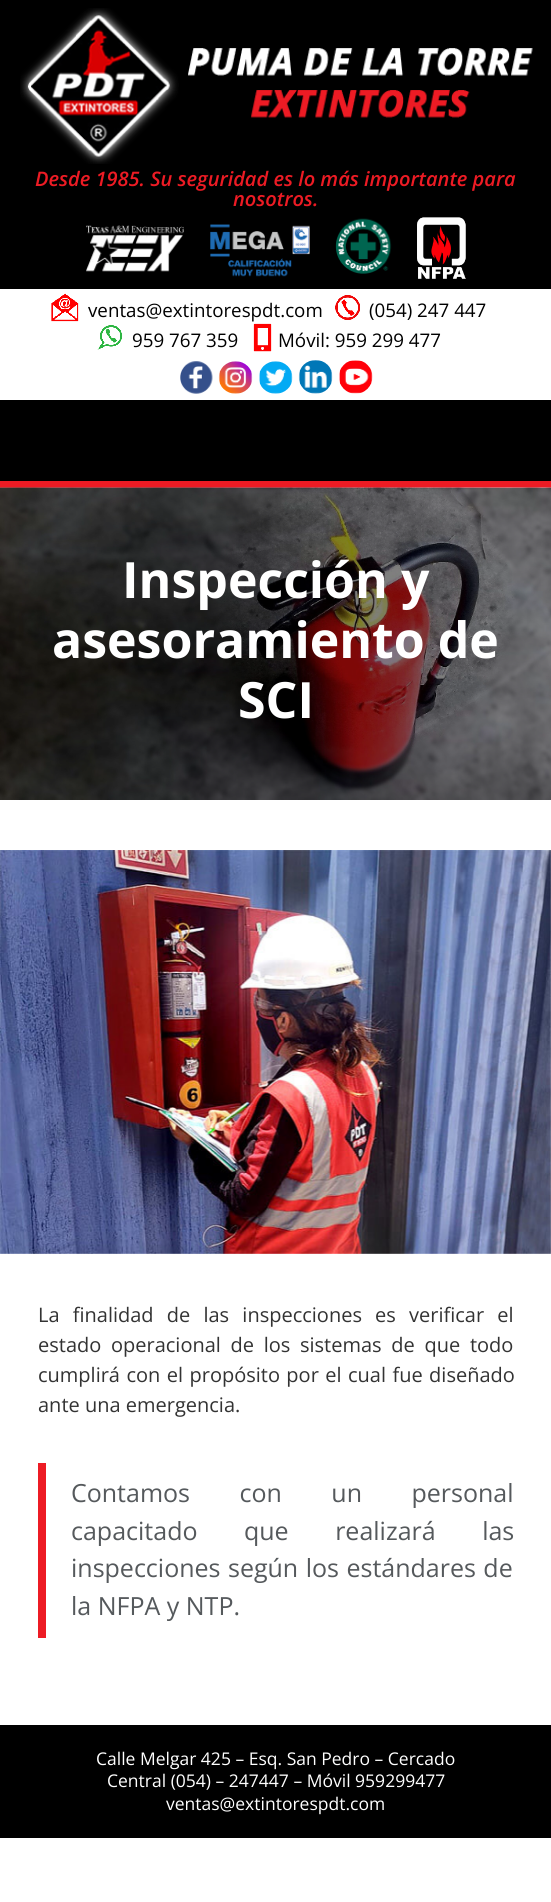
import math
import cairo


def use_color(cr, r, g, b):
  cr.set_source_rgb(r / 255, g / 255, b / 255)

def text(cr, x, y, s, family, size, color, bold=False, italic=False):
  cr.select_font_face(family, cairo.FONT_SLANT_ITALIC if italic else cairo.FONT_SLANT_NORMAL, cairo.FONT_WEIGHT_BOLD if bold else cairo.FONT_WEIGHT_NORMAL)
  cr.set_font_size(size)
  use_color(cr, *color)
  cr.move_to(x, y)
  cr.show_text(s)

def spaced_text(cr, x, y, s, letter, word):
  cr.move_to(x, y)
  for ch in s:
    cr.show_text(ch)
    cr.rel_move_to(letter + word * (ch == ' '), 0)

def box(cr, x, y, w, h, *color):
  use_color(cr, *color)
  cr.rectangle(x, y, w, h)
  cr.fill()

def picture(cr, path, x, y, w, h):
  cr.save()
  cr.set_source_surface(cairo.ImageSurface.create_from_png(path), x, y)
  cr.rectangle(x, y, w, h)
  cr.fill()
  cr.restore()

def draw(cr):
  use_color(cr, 255, 255, 255)
  cr.paint()
  box(cr, 0, 0, 551, 289, 0, 0, 0)
  picture(cr, "img_01.png", 20, 8, 513, 156)
  picture(cr, "img_02.png", 86, 225, 98, 47)
  picture(cr, "img_03.png", 210, 224, 100, 53)
  picture(cr, "img_04.png", 335, 218, 57, 56)
  picture(cr, "img_05.png", 417, 217, 49, 62)
  picture(cr, "img_06.png", 51, 293, 28, 29)
  picture(cr, "img_07.png", 335, 295, 25, 25)
  picture(cr, "img_08.png", 97, 325, 26, 25)
  picture(cr, "img_09.png", 253, 323, 19, 29)
  picture(cr, "img_10.png", 180, 361, 33, 33)
  picture(cr, "img_11.png", 218, 361, 35, 33)
  picture(cr, "img_12.png", 259, 361, 34, 33)
  picture(cr, "img_13.png", 298, 360, 35, 34)
  picture(cr, "img_14.png", 339, 360, 34, 34)
  box(cr, 0, 400, 551, 81, 0, 0, 0)
  box(cr, 0, 481, 551, 7, 237, 27, 36)
  picture(cr, "img_15.png", 0, 487, 551, 313)
  picture(cr, "img_16.png", 0, 850, 551, 404)
  box(cr, 38, 1463, 8, 175, 237, 27, 36)
  box(cr, 0, 1725, 551, 113, 0, 0, 0)
  text(cr, 35, 186, "Desde 1985. Su seguridad es lo más importante para", "Open Sans SemiBold", 20, (237, 27, 36), italic=True)
  text(cr, 233, 206, "nosotros.", "Open Sans SemiBold", 20, (237, 27, 36), italic=True)
  text(cr, 88, 317, "ventas@extintorespdt.com", "Open Sans", 18.75, (0, 0, 0))
  text(cr, 369, 317, "(054) 247 447", "Open Sans", 18.75, (0, 0, 0))
  text(cr, 132, 347, "959 767 359", "Open Sans", 18.75, (0, 0, 0))
  text(cr, 278, 347, "Móvil: 959 299 477", "Open Sans", 18.75, (0, 0, 0))
  text(cr, 122, 598, "Inspección y", "Open Sans", 50, (255, 255, 255), bold=True)
  text(cr, 52, 658, "asesoramiento de", "Open Sans", 50, (255, 255, 255), bold=True)
  text(cr, 238, 718, "SCI", "Open Sans", 50, (255, 255, 255), bold=True)
  cr.select_font_face("Open Sans")
  cr.set_font_size(20)
  use_color(cr, 51, 51, 51)
  spaced_text(cr, 38, 1322, "La finalidad de las inspecciones es verificar el", 0, 8)
  spaced_text(cr, 38, 1352, "estado operacional de los sistemas de que todo", 0, 4.5)
  spaced_text(cr, 38, 1382, "cumplirá con el propósito por el cual fue diseñado", 0, 1.25)
  text(cr, 38, 1412, "ante una emergencia.", "Open Sans", 20, (51, 51, 51))
  cr.set_font_size(25)
  use_color(cr, 85, 89, 92)
  spaced_text(cr, 71, 1502, "Contamos con un personal", 0, 43)
  spaced_text(cr, 71, 1540, "capacitado que realizará las", 0, 40)
  spaced_text(cr, 71, 1577, "inspecciones según los estándares de", 0, 1)
  text(cr, 71, 1615, "la NFPA y NTP.", "Open Sans", 25, (85, 89, 92))
  text(cr, 96, 1765, "Calle Melgar 425 – Esq. San Pedro – Cercado", "Open Sans", 17.5, (255, 255, 255))
  text(cr, 107, 1787, "Central (054) – 247447 – Móvil 959299477", "Open Sans", 17.5, (255, 255, 255))
  text(cr, 166, 1810, "ventas@extintorespdt.com", "Open Sans", 17.5, (255, 255, 255))


surface = cairo.ImageSurface(cairo.FORMAT_RGB24, 551, 1902)
cr = cairo.Context(surface)
options = cairo.FontOptions()
options.set_hint_metrics(cairo.HINT_METRICS_OFF)
options.set_hint_style(cairo.HINT_STYLE_NONE)
cr.set_font_options(options)
cr.set_miter_limit(4)
draw(cr)
surface.write_to_png("out.png")
